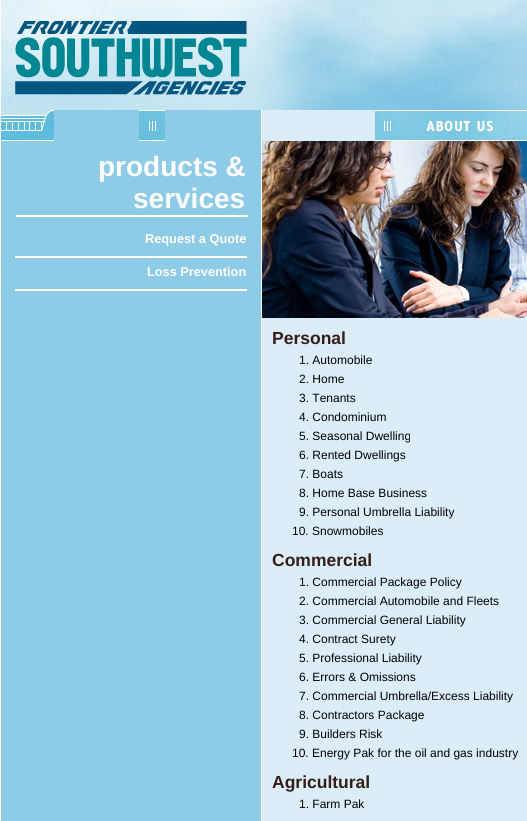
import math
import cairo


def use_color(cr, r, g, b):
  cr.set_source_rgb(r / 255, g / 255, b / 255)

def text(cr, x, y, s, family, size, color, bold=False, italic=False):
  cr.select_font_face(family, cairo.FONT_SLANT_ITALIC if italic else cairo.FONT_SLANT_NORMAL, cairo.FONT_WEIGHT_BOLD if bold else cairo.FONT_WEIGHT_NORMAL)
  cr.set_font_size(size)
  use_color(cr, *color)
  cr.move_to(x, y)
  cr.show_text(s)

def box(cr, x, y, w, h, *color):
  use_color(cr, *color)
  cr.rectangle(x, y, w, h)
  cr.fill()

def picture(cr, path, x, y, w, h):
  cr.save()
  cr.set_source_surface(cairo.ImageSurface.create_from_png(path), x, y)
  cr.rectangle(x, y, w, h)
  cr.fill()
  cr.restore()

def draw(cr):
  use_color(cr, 255, 255, 255)
  cr.paint()
  picture(cr, "img_01.png", 0, 0, 527, 821)
  picture(cr, "img_02.png", 1, 0, 526, 110)
  picture(cr, "img_03.png", 0, 110, 54, 31)
  picture(cr, "img_04.png", 139, 110, 26, 31)
  picture(cr, "img_05.png", 375, 110, 26, 31)
  picture(cr, "img_06.png", 401, 110, 118, 31)
  picture(cr, "img_07.png", 519, 110, 8, 31)
  box(cr, 16, 215, 232, 2, 255, 255, 255)
  box(cr, 15, 256, 232, 2, 255, 255, 255)
  box(cr, 15, 289, 232, 2, 255, 255, 255)
  picture(cr, "img_08.png", 262, 141, 265, 177)
  text(cr, 98, 176, "products &", "Liberation Sans", 28, (255, 255, 255), bold=True)
  text(cr, 133, 208, "services", "Liberation Sans", 28, (255, 255, 255), bold=True)
  text(cr, 145, 243, "Request a Quote", "Liberation Sans", 12.75, (255, 255, 255), bold=True)
  text(cr, 147, 276, "Loss Prevention", "Liberation Sans", 12.75, (255, 255, 255), bold=True)
  text(cr, 272, 344, "Personal", "Liberation Sans", 17.5, (53, 30, 25), bold=True)
  text(cr, 299, 364, "1. Automobile", "Liberation Sans", 12, (0, 0, 0))
  text(cr, 299, 383, "2. Home", "Liberation Sans", 12, (0, 0, 0))
  text(cr, 299, 402, "3. Tenants", "Liberation Sans", 12, (0, 0, 0))
  text(cr, 299, 421, "4. Condominium", "Liberation Sans", 12, (0, 0, 0))
  text(cr, 299, 440, "5. Seasonal Dwelling", "Liberation Sans", 12, (0, 0, 0))
  text(cr, 299, 459, "6. Rented Dwellings", "Liberation Sans", 12, (0, 0, 0))
  text(cr, 299, 478, "7. Boats", "Liberation Sans", 12, (0, 0, 0))
  text(cr, 299, 497, "8. Home Base Business", "Liberation Sans", 12, (0, 0, 0))
  text(cr, 299, 516, "9. Personal Umbrella Liability", "Liberation Sans", 12, (0, 0, 0))
  text(cr, 292, 535, "10. Snowmobiles", "Liberation Sans", 12, (0, 0, 0))
  text(cr, 272, 566, "Commercial", "Liberation Sans", 17.5, (53, 30, 25), bold=True)
  text(cr, 299, 586, "1. Commercial Package Policy", "Liberation Sans", 12, (0, 0, 0))
  text(cr, 299, 605, "2. Commercial Automobile and Fleets", "Liberation Sans", 12, (0, 0, 0))
  text(cr, 299, 624, "3. Commercial General Liability", "Liberation Sans", 12, (0, 0, 0))
  text(cr, 299, 643, "4. Contract Surety", "Liberation Sans", 12, (0, 0, 0))
  text(cr, 299, 662, "5. Professional Liability", "Liberation Sans", 12, (0, 0, 0))
  text(cr, 299, 681, "6. Errors & Omissions", "Liberation Sans", 12, (0, 0, 0))
  text(cr, 299, 700, "7. Commercial Umbrella/Excess Liability", "Liberation Sans", 12, (0, 0, 0))
  text(cr, 299, 719, "8. Contractors Package", "Liberation Sans", 12, (0, 0, 0))
  text(cr, 299, 738, "9. Builders Risk", "Liberation Sans", 12, (0, 0, 0))
  text(cr, 292, 757, "10. Energy Pak for the oil and gas industry", "Liberation Sans", 12, (0, 0, 0))
  text(cr, 272, 788, "Agricultural", "Liberation Sans", 17.5, (53, 30, 25), bold=True)
  text(cr, 299, 808, "1. Farm Pak", "Liberation Sans", 12, (0, 0, 0))


surface = cairo.ImageSurface(cairo.FORMAT_RGB24, 527, 821)
cr = cairo.Context(surface)
options = cairo.FontOptions()
options.set_hint_metrics(cairo.HINT_METRICS_OFF)
options.set_hint_style(cairo.HINT_STYLE_NONE)
cr.set_font_options(options)
cr.set_miter_limit(4)
draw(cr)
surface.write_to_png("out.png")
